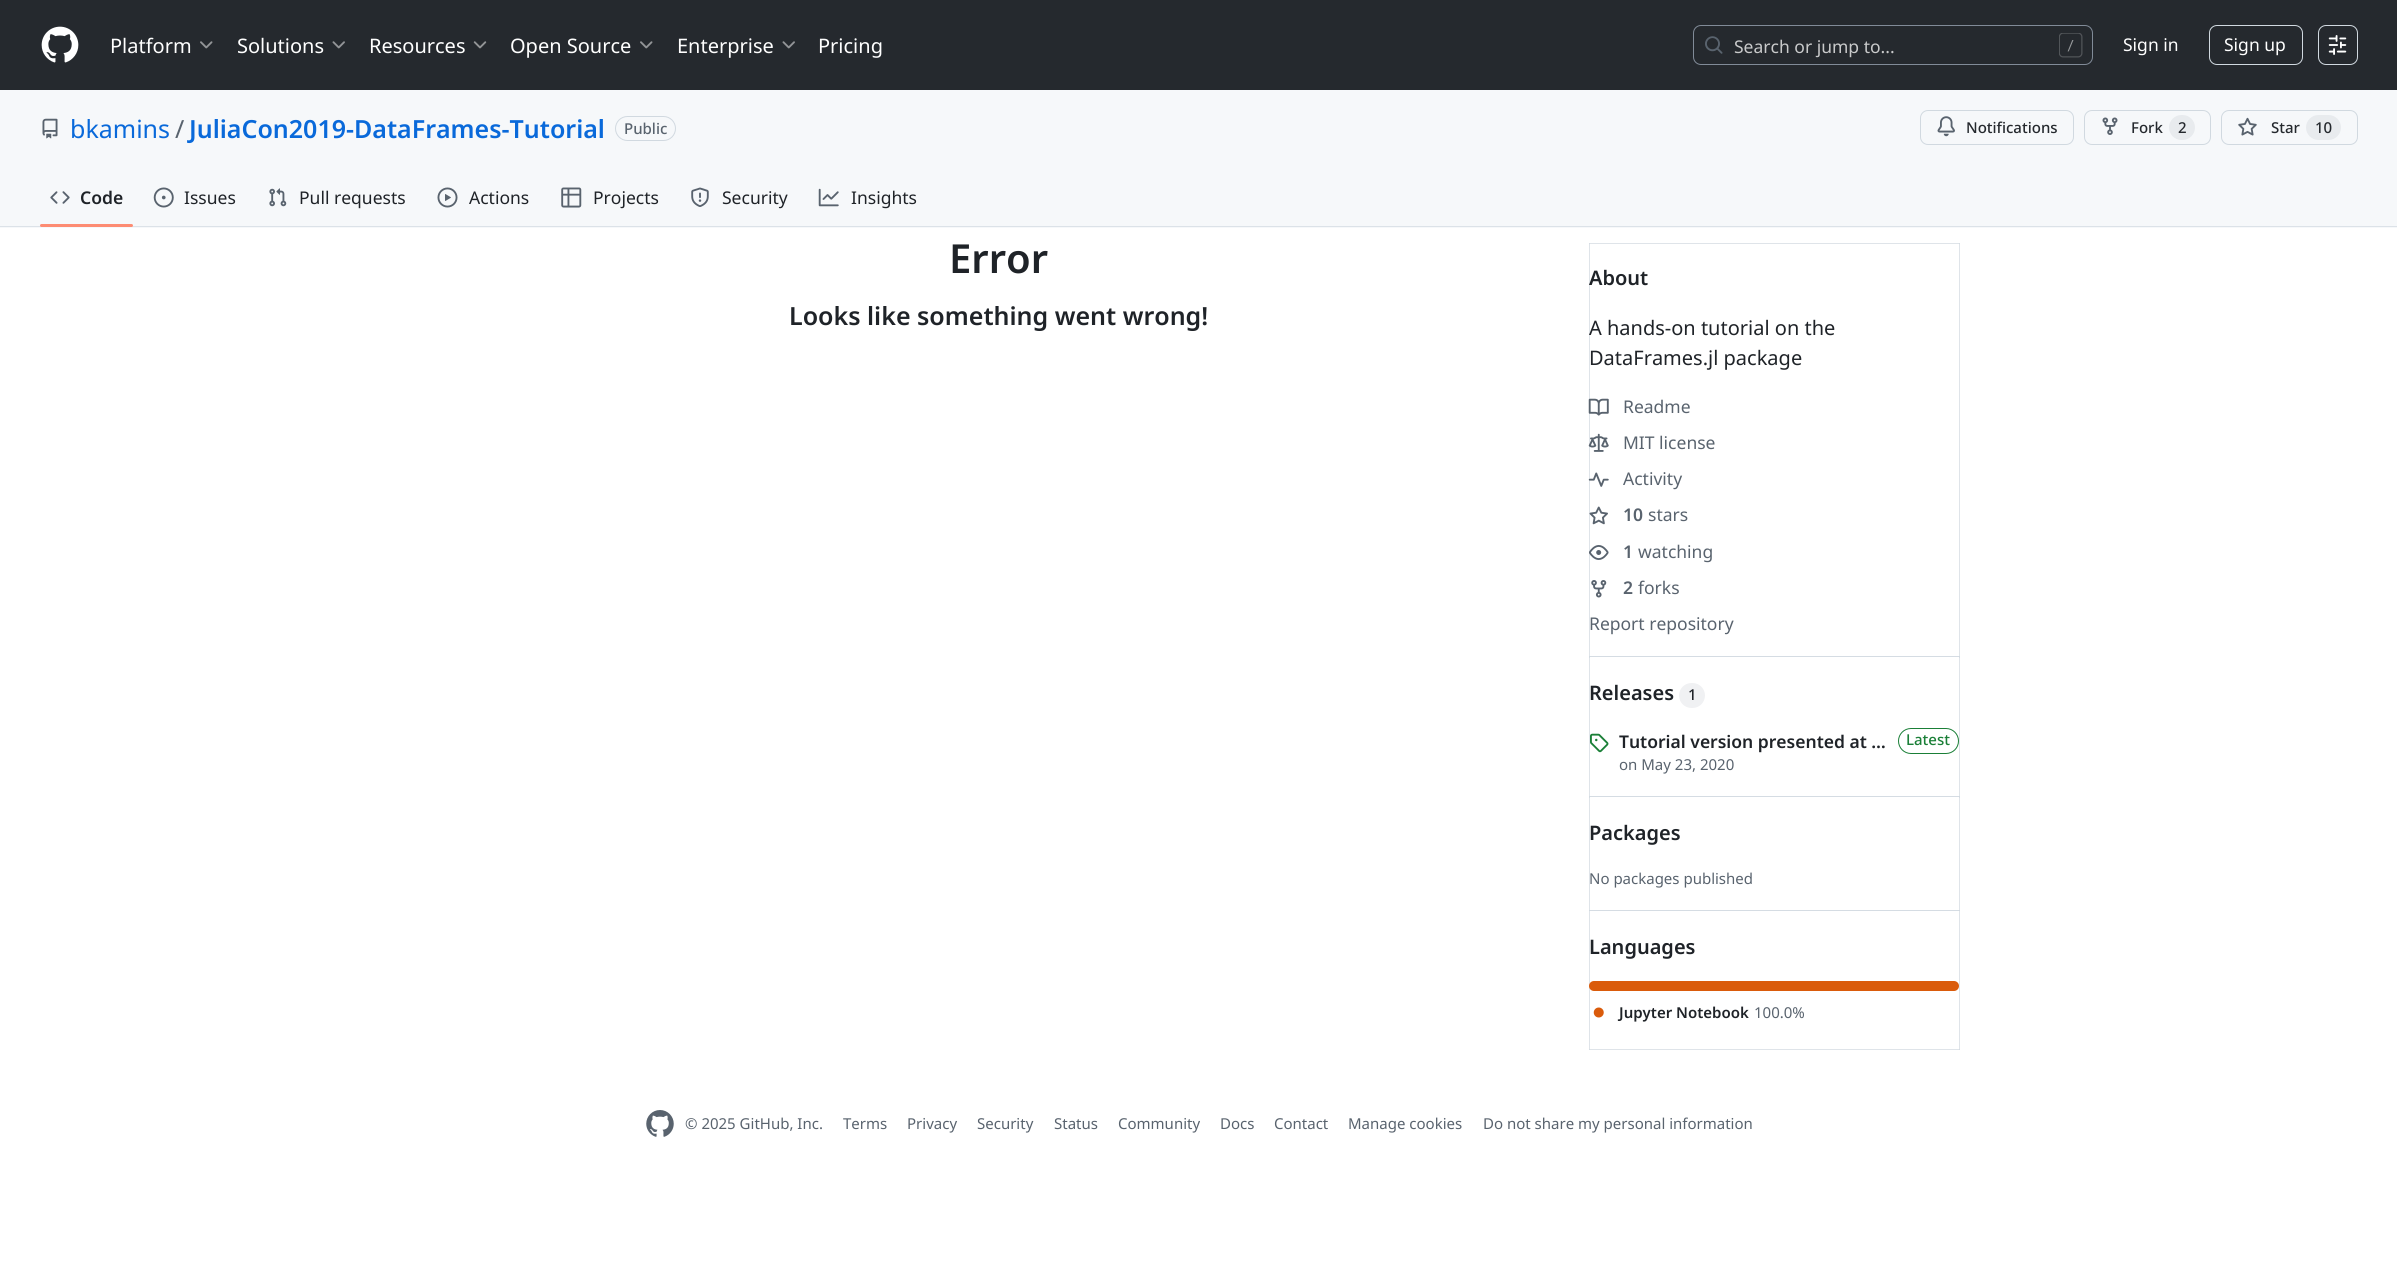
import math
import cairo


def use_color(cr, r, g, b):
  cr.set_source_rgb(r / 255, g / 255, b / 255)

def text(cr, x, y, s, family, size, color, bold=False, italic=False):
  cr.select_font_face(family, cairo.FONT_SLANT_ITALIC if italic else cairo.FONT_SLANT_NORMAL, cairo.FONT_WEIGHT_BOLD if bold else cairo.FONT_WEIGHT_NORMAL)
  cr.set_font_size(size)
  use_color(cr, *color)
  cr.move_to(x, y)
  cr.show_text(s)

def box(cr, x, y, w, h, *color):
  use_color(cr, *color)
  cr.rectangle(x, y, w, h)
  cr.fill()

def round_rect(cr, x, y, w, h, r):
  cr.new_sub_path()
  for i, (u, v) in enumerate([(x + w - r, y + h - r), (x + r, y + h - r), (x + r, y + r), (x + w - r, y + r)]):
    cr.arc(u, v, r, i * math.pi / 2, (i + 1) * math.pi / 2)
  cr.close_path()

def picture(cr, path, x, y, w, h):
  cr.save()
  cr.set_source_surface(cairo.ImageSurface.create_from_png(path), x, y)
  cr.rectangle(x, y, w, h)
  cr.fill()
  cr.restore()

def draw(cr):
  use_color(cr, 255, 255, 255)
  cr.paint()
  box(cr, 1589, 243, 1, 807, 223, 228, 233)
  box(cr, 1959, 243, 1, 668, 223, 228, 233)
  box(cr, 1589, 656, 1, 2, 213, 220, 227)
  box(cr, 1959, 656, 1, 2, 213, 220, 227)
  box(cr, 1589, 796, 1, 2, 213, 220, 227)
  box(cr, 1959, 796, 1, 2, 213, 220, 227)
  box(cr, 1589, 1049, 371, 1, 223, 228, 233)
  box(cr, 1589, 1049, 1, 1, 213, 220, 227)
  box(cr, 1959, 910, 1, 140, 223, 228, 233)
  box(cr, 1959, 1049, 1, 1, 213, 220, 227)
  box(cr, 0, 0, 2397, 90, 37, 41, 46)
  picture(cr, "img_01.png", 41, 26, 38, 37)
  picture(cr, "img_02.png", 200, 41, 13, 8)
  picture(cr, "img_03.png", 332, 41, 13, 8)
  picture(cr, "img_04.png", 473, 41, 14, 8)
  picture(cr, "img_02.png", 640, 41, 13, 8)
  picture(cr, "img_03.png", 782, 41, 13, 8)
  round_rect(cr, 1693.5, 25.5, 399, 39, 7.5)
  use_color(cr, 129, 139, 152)
  cr.set_line_width(1)
  cr.stroke()
  picture(cr, "img_05.png", 1705, 36, 18, 18)
  picture(cr, "img_06.png", 2059, 33, 24, 25)
  round_rect(cr, 2209.5, 25.5, 93, 39, 7.5)
  use_color(cr, 209, 217, 224)
  cr.stroke()
  round_rect(cr, 2318.5, 25.5, 39, 39, 7.5)
  cr.stroke()
  picture(cr, "img_07.png", 2328, 35, 19, 20)
  box(cr, 0, 90, 2397, 138, 246, 248, 250)
  picture(cr, "img_08.png", 42, 118, 16, 21)
  round_rect(cr, 615.5, 116.5, 60, 24, 12)
  use_color(cr, 209, 217, 224)
  cr.stroke()
  round_rect(cr, 1920.5, 110.5, 153, 34, 7.5)
  cr.stroke()
  picture(cr, "img_09.png", 1937, 116, 18, 21)
  round_rect(cr, 2084.5, 110.5, 126, 34, 7.5)
  cr.stroke()
  picture(cr, "img_10.png", 2102, 117, 16, 18)
  use_color(cr, 232, 235, 238)
  round_rect(cr, 2169, 115, 26, 25, 12.5)
  cr.fill()
  round_rect(cr, 2221.5, 110.5, 136, 34, 7.5)
  use_color(cr, 209, 217, 224)
  cr.stroke()
  picture(cr, "img_11.png", 2238, 117, 19, 19)
  use_color(cr, 232, 235, 238)
  round_rect(cr, 2306, 115, 35, 25, 12.5)
  cr.fill()
  box(cr, 0, 226, 2397, 1, 220, 226, 232)
  picture(cr, "img_12.png", 50, 191, 20, 13)
  use_color(cr, 253, 140, 115)
  round_rect(cr, 40, 224, 93, 3, 1.5)
  cr.fill()
  picture(cr, "img_13.png", 153, 187, 21, 21)
  picture(cr, "img_14.png", 269, 188, 18, 19)
  picture(cr, "img_15.png", 437, 187, 21, 21)
  picture(cr, "img_16.png", 561, 187, 21, 21)
  picture(cr, "img_17.png", 691, 187, 18, 20)
  picture(cr, "img_18.png", 818, 188, 21, 19)
  box(cr, 1589, 243, 371, 1, 223, 228, 233)
  box(cr, 1589, 243, 1, 1, 213, 220, 227)
  box(cr, 1959, 243, 1, 1, 213, 220, 227)
  picture(cr, "img_19.png", 1588, 398, 21, 18)
  picture(cr, "img_20.png", 1588, 433, 21, 19)
  picture(cr, "img_21.png", 1588, 472, 21, 15)
  picture(cr, "img_22.png", 1589, 506, 19, 19)
  picture(cr, "img_23.png", 1589, 545, 20, 15)
  picture(cr, "img_24.png", 1591, 580, 16, 18)
  box(cr, 1589, 656, 371, 1, 213, 220, 227)
  box(cr, 1589, 656, 1, 1, 209, 217, 224)
  box(cr, 1959, 656, 1, 1, 209, 217, 224)
  use_color(cr, 240, 241, 243)
  round_rect(cr, 1679, 683, 26, 25, 12.5)
  cr.fill()
  picture(cr, "img_25.png", 1590, 733, 19, 20)
  round_rect(cr, 1898.5, 728.5, 60, 25, 12.5)
  use_color(cr, 26, 127, 55)
  cr.stroke()
  box(cr, 1589, 796, 371, 1, 213, 220, 227)
  box(cr, 1589, 796, 1, 1, 209, 217, 224)
  box(cr, 1959, 796, 1, 1, 209, 217, 224)
  box(cr, 1589, 910, 371, 1, 213, 220, 227)
  box(cr, 1589, 910, 1, 1, 209, 217, 224)
  box(cr, 1959, 910, 1, 1, 209, 217, 224)
  use_color(cr, 218, 91, 11)
  round_rect(cr, 1589, 981, 370, 10, 5)
  cr.fill()
  picture(cr, "img_26.png", 1593, 1007, 11, 11)
  picture(cr, "img_27.png", 646, 1110, 28, 27)
  text(cr, 110, 53, "Platform", "Noto Sans", 20, (255, 255, 255))
  text(cr, 237, 53, "Solutions", "Noto Sans", 20, (255, 255, 255))
  text(cr, 369, 53, "Resources", "Noto Sans", 20, (255, 255, 255))
  text(cr, 510, 53, "Open Source", "Noto Sans", 20, (255, 255, 255))
  text(cr, 677, 53, "Enterprise", "Noto Sans", 20, (255, 255, 255))
  text(cr, 818, 53, "Pricing", "Noto Sans", 20, (255, 255, 255))
  text(cr, 1734, 53, "Search or jump to...", "Noto Sans", 17.5, (201, 202, 203))
  text(cr, 2123, 51, "Sign in", "Noto Sans", 17.5, (255, 255, 255))
  text(cr, 2224, 51, "Sign up", "Noto Sans", 17.5, (255, 255, 255))
  text(cr, 70, 138, "bkamins", "Noto Sans", 25, (9, 105, 218))
  text(cr, 175, 138, "/", "Noto Sans", 25, (89, 99, 110))
  text(cr, 189, 138, "JuliaCon2019-DataFrames-Tutorial", "Noto Sans SemiBold", 25, (9, 105, 218))
  text(cr, 624, 134, "Public", "Noto Sans Medium", 15, (89, 99, 110))
  text(cr, 1966, 133, "Notifications", "Noto Sans Medium", 15, (37, 41, 46))
  text(cr, 2131, 133, "Fork", "Noto Sans Medium", 15, (37, 41, 46))
  text(cr, 2178, 133, "2", "Noto Sans Medium", 15, (37, 41, 46))
  text(cr, 2271, 133, "Star", "Noto Sans Medium", 15, (37, 41, 46))
  text(cr, 2315, 133, "10", "Noto Sans Medium", 15, (37, 41, 46))
  text(cr, 80, 204, "Code", "Noto Sans SemiBold", 17.5, (31, 35, 40))
  text(cr, 184, 204, "Issues", "Noto Sans", 17.5, (31, 35, 40))
  text(cr, 299, 204, "Pull requests", "Noto Sans", 17.5, (31, 35, 40))
  text(cr, 469, 204, "Actions", "Noto Sans", 17.5, (31, 35, 40))
  text(cr, 593, 204, "Projects", "Noto Sans", 17.5, (31, 35, 40))
  text(cr, 722, 204, "Security", "Noto Sans", 17.5, (31, 35, 40))
  text(cr, 851, 204, "Insights", "Noto Sans", 17.5, (31, 35, 40))
  text(cr, 949, 273, "Error", "Noto Sans SemiBold", 40, (31, 35, 40))
  text(cr, 789, 325, "Looks like something went wrong!", "Noto Sans SemiBold", 25, (31, 35, 40))
  text(cr, 1589, 285, "About", "Noto Sans SemiBold", 20, (31, 35, 40))
  text(cr, 1589, 335, "A hands-on tutorial on the", "Noto Sans", 20, (31, 35, 40))
  text(cr, 1589, 365, "DataFrames.jl package", "Noto Sans", 20, (31, 35, 40))
  text(cr, 1623, 413, "Readme", "Noto Sans", 17.5, (89, 99, 110))
  text(cr, 1623, 449, "MIT license", "Noto Sans", 17.5, (89, 99, 110))
  text(cr, 1623, 485, "Activity", "Noto Sans", 17.5, (89, 99, 110))
  text(cr, 1623, 521, "10", "Noto Sans SemiBold", 17.5, (89, 99, 110))
  text(cr, 1648, 521, "stars", "Noto Sans", 17.5, (89, 99, 110))
  text(cr, 1623, 558, "1", "Noto Sans SemiBold", 17.5, (89, 99, 110))
  text(cr, 1638, 558, "watching", "Noto Sans", 17.5, (89, 99, 110))
  text(cr, 1623, 594, "2", "Noto Sans SemiBold", 17.5, (89, 99, 110))
  text(cr, 1638, 594, "forks", "Noto Sans", 17.5, (89, 99, 110))
  text(cr, 1589, 630, "Report repository", "Noto Sans", 17.5, (89, 99, 110))
  text(cr, 1589, 700, "Releases", "Noto Sans SemiBold", 20, (31, 35, 40))
  text(cr, 1688, 700, "1", "Noto Sans Medium", 15, (31, 35, 40))
  text(cr, 1619, 748, "Tutorial version presented at …", "Noto Sans SemiBold", 17.5, (31, 35, 40))
  text(cr, 1906, 745, "Latest", "Noto Sans Medium", 15, (26, 127, 55))
  text(cr, 1619, 770, "on May 23, 2020", "Noto Sans", 15, (89, 99, 110))
  text(cr, 1589, 840, "Packages", "Noto Sans SemiBold", 20, (31, 35, 40))
  text(cr, 1589, 884, "No packages published", "Noto Sans", 15, (89, 99, 110))
  text(cr, 1589, 954, "Languages", "Noto Sans SemiBold", 20, (31, 35, 40))
  text(cr, 1619, 1018, "Jupyter Notebook", "Noto Sans SemiBold", 15, (31, 35, 40))
  text(cr, 1754, 1018, "100.0%", "Noto Sans", 15, (89, 99, 110))
  text(cr, 685, 1129, "© 2025 GitHub, Inc.", "Noto Sans", 15, (89, 99, 110))
  text(cr, 843, 1129, "Terms", "Noto Sans", 15, (89, 99, 110))
  text(cr, 907, 1129, "Privacy", "Noto Sans", 15, (89, 99, 110))
  text(cr, 977, 1129, "Security", "Noto Sans", 15, (89, 99, 110))
  text(cr, 1054, 1129, "Status", "Noto Sans", 15, (89, 99, 110))
  text(cr, 1118, 1129, "Community", "Noto Sans", 15, (89, 99, 110))
  text(cr, 1220, 1129, "Docs", "Noto Sans", 15, (89, 99, 110))
  text(cr, 1274, 1129, "Contact", "Noto Sans", 15, (89, 99, 110))
  text(cr, 1348, 1129, "Manage cookies", "Noto Sans", 15, (89, 99, 110))
  text(cr, 1483, 1129, "Do not share my personal information", "Noto Sans", 15, (89, 99, 110))


surface = cairo.ImageSurface(cairo.FORMAT_RGB24, 2397, 1277)
cr = cairo.Context(surface)
options = cairo.FontOptions()
options.set_hint_metrics(cairo.HINT_METRICS_OFF)
options.set_hint_style(cairo.HINT_STYLE_NONE)
cr.set_font_options(options)
cr.set_miter_limit(4)
draw(cr)
surface.write_to_png("out.png")
